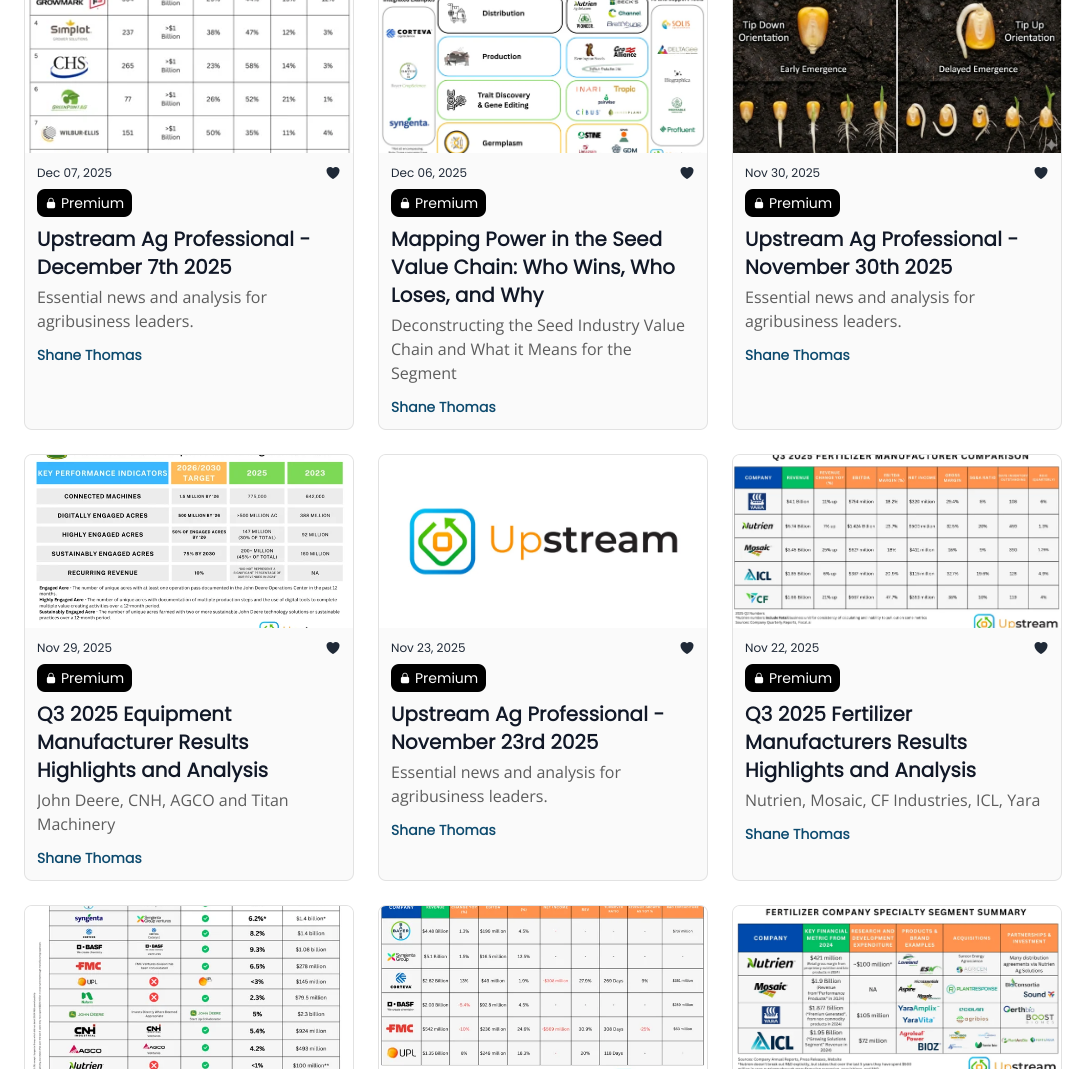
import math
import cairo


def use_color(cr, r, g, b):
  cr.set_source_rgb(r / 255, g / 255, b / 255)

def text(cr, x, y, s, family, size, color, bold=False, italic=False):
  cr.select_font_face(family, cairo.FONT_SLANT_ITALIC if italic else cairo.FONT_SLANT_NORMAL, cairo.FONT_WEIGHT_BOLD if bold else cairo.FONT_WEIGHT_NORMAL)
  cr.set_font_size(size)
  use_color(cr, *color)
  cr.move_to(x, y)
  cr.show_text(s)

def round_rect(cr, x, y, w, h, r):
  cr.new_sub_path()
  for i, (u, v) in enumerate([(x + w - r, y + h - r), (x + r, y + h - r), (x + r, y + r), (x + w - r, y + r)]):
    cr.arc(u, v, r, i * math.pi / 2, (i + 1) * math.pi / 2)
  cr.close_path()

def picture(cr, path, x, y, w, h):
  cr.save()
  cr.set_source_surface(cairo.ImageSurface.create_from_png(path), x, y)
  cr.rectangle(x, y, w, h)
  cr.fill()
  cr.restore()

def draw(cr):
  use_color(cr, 255, 255, 255)
  cr.paint()
  use_color(cr, 250, 250, 250)
  round_rect(cr, 24.5, -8.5, 329, 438, 7.5)
  cr.fill_preserve()
  use_color(cr, 226, 226, 226)
  cr.set_line_width(1)
  cr.stroke()
  picture(cr, "img_01.png", 25, 0, 328, 153)
  picture(cr, "img_02.png", 326, 167, 14, 12)
  use_color(cr, 0, 0, 0)
  round_rect(cr, 37, 189, 95, 28, 8)
  cr.fill()
  picture(cr, "img_03.png", 46, 197, 10, 12)
  use_color(cr, 250, 250, 250)
  round_rect(cr, 378.5, -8.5, 329, 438, 7.5)
  cr.fill_preserve()
  use_color(cr, 226, 226, 226)
  cr.stroke()
  picture(cr, "img_04.png", 379, 0, 328, 153)
  picture(cr, "img_02.png", 680, 167, 14, 12)
  use_color(cr, 0, 0, 0)
  round_rect(cr, 391, 189, 95, 28, 8)
  cr.fill()
  picture(cr, "img_03.png", 400, 197, 10, 12)
  use_color(cr, 250, 250, 250)
  round_rect(cr, 732.5, -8.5, 329, 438, 7.5)
  cr.fill_preserve()
  use_color(cr, 226, 226, 226)
  cr.stroke()
  picture(cr, "img_05.png", 733, 0, 328, 153)
  picture(cr, "img_02.png", 1034, 167, 14, 12)
  use_color(cr, 0, 0, 0)
  round_rect(cr, 745, 189, 95, 28, 8)
  cr.fill()
  picture(cr, "img_03.png", 754, 197, 10, 12)
  use_color(cr, 250, 250, 250)
  round_rect(cr, 24.5, 454.5, 329, 426, 7.5)
  cr.fill_preserve()
  use_color(cr, 226, 226, 226)
  cr.stroke()
  picture(cr, "img_06.png", 25, 455, 328, 173)
  picture(cr, "img_02.png", 326, 642, 14, 12)
  use_color(cr, 0, 0, 0)
  round_rect(cr, 37, 664, 95, 28, 8)
  cr.fill()
  picture(cr, "img_03.png", 46, 672, 10, 12)
  use_color(cr, 250, 250, 250)
  round_rect(cr, 378.5, 454.5, 329, 426, 7.5)
  cr.fill_preserve()
  use_color(cr, 226, 226, 226)
  cr.stroke()
  picture(cr, "img_07.png", 379, 455, 328, 173)
  picture(cr, "img_02.png", 680, 642, 14, 12)
  use_color(cr, 0, 0, 0)
  round_rect(cr, 391, 664, 95, 28, 8)
  cr.fill()
  picture(cr, "img_03.png", 400, 672, 10, 12)
  use_color(cr, 250, 250, 250)
  round_rect(cr, 732.5, 454.5, 329, 426, 7.5)
  cr.fill_preserve()
  use_color(cr, 226, 226, 226)
  cr.stroke()
  picture(cr, "img_08.png", 733, 455, 328, 173)
  picture(cr, "img_02.png", 1034, 642, 14, 12)
  use_color(cr, 0, 0, 0)
  round_rect(cr, 745, 664, 95, 28, 8)
  cr.fill()
  picture(cr, "img_03.png", 754, 672, 10, 12)
  round_rect(cr, 24.5, 905.5, 329, 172, 7.5)
  use_color(cr, 226, 226, 226)
  cr.stroke()
  picture(cr, "img_09.png", 25, 906, 328, 163)
  round_rect(cr, 378.5, 905.5, 329, 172, 7.5)
  cr.stroke()
  picture(cr, "img_10.png", 379, 906, 328, 163)
  round_rect(cr, 732.5, 905.5, 329, 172, 7.5)
  cr.stroke()
  picture(cr, "img_11.png", 733, 906, 328, 163)
  text(cr, 37, 177, "Dec 07, 2025", "Poppins", 12, (31, 41, 55))
  text(cr, 61, 208, "Premium", "Poppins", 14, (255, 255, 255))
  text(cr, 37, 246, "Upstream Ag Professional -", "Poppins", 20, (17, 24, 39), bold=True)
  text(cr, 37, 274, "December 7th 2025", "Poppins", 20, (17, 24, 39), bold=True)
  text(cr, 37, 303, "Essential news and analysis for", "Open Sans", 16, (93, 93, 93))
  text(cr, 37, 327, "agribusiness leaders.", "Open Sans", 16, (93, 93, 93))
  text(cr, 37, 360, "Shane Thomas", "Poppins", 14, (12, 74, 110), bold=True)
  text(cr, 391, 177, "Dec 06, 2025", "Poppins", 12, (31, 41, 55))
  text(cr, 415, 208, "Premium", "Poppins", 14, (255, 255, 255))
  text(cr, 391, 246, "Mapping Power in the Seed", "Poppins", 20, (17, 24, 39), bold=True)
  text(cr, 391, 274, "Value Chain: Who Wins, Who", "Poppins", 20, (17, 24, 39), bold=True)
  text(cr, 391, 302, "Loses, and Why", "Poppins", 20, (17, 24, 39), bold=True)
  text(cr, 391, 331, "Deconstructing the Seed Industry Value", "Open Sans", 16, (93, 93, 93))
  text(cr, 391, 355, "Chain and What it Means for the", "Open Sans", 16, (93, 93, 93))
  text(cr, 391, 379, "Segment", "Open Sans", 16, (93, 93, 93))
  text(cr, 391, 412, "Shane Thomas", "Poppins", 14, (12, 74, 110), bold=True)
  text(cr, 745, 177, "Nov 30, 2025", "Poppins", 12, (31, 41, 55))
  text(cr, 769, 208, "Premium", "Poppins", 14, (255, 255, 255))
  text(cr, 745, 246, "Upstream Ag Professional -", "Poppins", 20, (17, 24, 39), bold=True)
  text(cr, 745, 274, "November 30th 2025", "Poppins", 20, (17, 24, 39), bold=True)
  text(cr, 745, 303, "Essential news and analysis for", "Open Sans", 16, (93, 93, 93))
  text(cr, 745, 327, "agribusiness leaders.", "Open Sans", 16, (93, 93, 93))
  text(cr, 745, 360, "Shane Thomas", "Poppins", 14, (12, 74, 110), bold=True)
  text(cr, 37, 652, "Nov 29, 2025", "Poppins", 12, (31, 41, 55))
  text(cr, 61, 683, "Premium", "Poppins", 14, (255, 255, 255))
  text(cr, 37, 721, "Q3 2025 Equipment", "Poppins", 20, (17, 24, 39), bold=True)
  text(cr, 37, 749, "Manufacturer Results", "Poppins", 20, (17, 24, 39), bold=True)
  text(cr, 37, 777, "Highlights and Analysis", "Poppins", 20, (17, 24, 39), bold=True)
  cr.save()
  cr.rectangle(37, 788, 304, 48)
  cr.clip()
  text(cr, 37, 806, "John Deere, CNH, AGCO and Titan", "Open Sans", 16, (93, 93, 93))
  cr.restore()
  text(cr, 37, 830, "Machinery", "Open Sans", 16, (93, 93, 93))
  text(cr, 37, 863, "Shane Thomas", "Poppins", 14, (12, 74, 110), bold=True)
  text(cr, 391, 652, "Nov 23, 2025", "Poppins", 12, (31, 41, 55))
  text(cr, 415, 683, "Premium", "Poppins", 14, (255, 255, 255))
  text(cr, 391, 721, "Upstream Ag Professional -", "Poppins", 20, (17, 24, 39), bold=True)
  text(cr, 391, 749, "November 23rd 2025", "Poppins", 20, (17, 24, 39), bold=True)
  text(cr, 391, 778, "Essential news and analysis for", "Open Sans", 16, (93, 93, 93))
  text(cr, 391, 802, "agribusiness leaders.", "Open Sans", 16, (93, 93, 93))
  text(cr, 391, 835, "Shane Thomas", "Poppins", 14, (12, 74, 110), bold=True)
  text(cr, 745, 652, "Nov 22, 2025", "Poppins", 12, (31, 41, 55))
  text(cr, 769, 683, "Premium", "Poppins", 14, (255, 255, 255))
  text(cr, 745, 721, "Q3 2025 Fertilizer", "Poppins", 20, (17, 24, 39), bold=True)
  text(cr, 745, 749, "Manufacturers Results", "Poppins", 20, (17, 24, 39), bold=True)
  text(cr, 745, 777, "Highlights and Analysis", "Poppins", 20, (17, 24, 39), bold=True)
  text(cr, 745, 806, "Nutrien, Mosaic, CF Industries, ICL, Yara", "Open Sans", 16, (93, 93, 93))
  text(cr, 745, 839, "Shane Thomas", "Poppins", 14, (12, 74, 110), bold=True)


surface = cairo.ImageSurface(cairo.FORMAT_RGB24, 1086, 1069)
cr = cairo.Context(surface)
options = cairo.FontOptions()
options.set_hint_metrics(cairo.HINT_METRICS_OFF)
options.set_hint_style(cairo.HINT_STYLE_NONE)
cr.set_font_options(options)
cr.set_miter_limit(4)
draw(cr)
surface.write_to_png("out.png")
